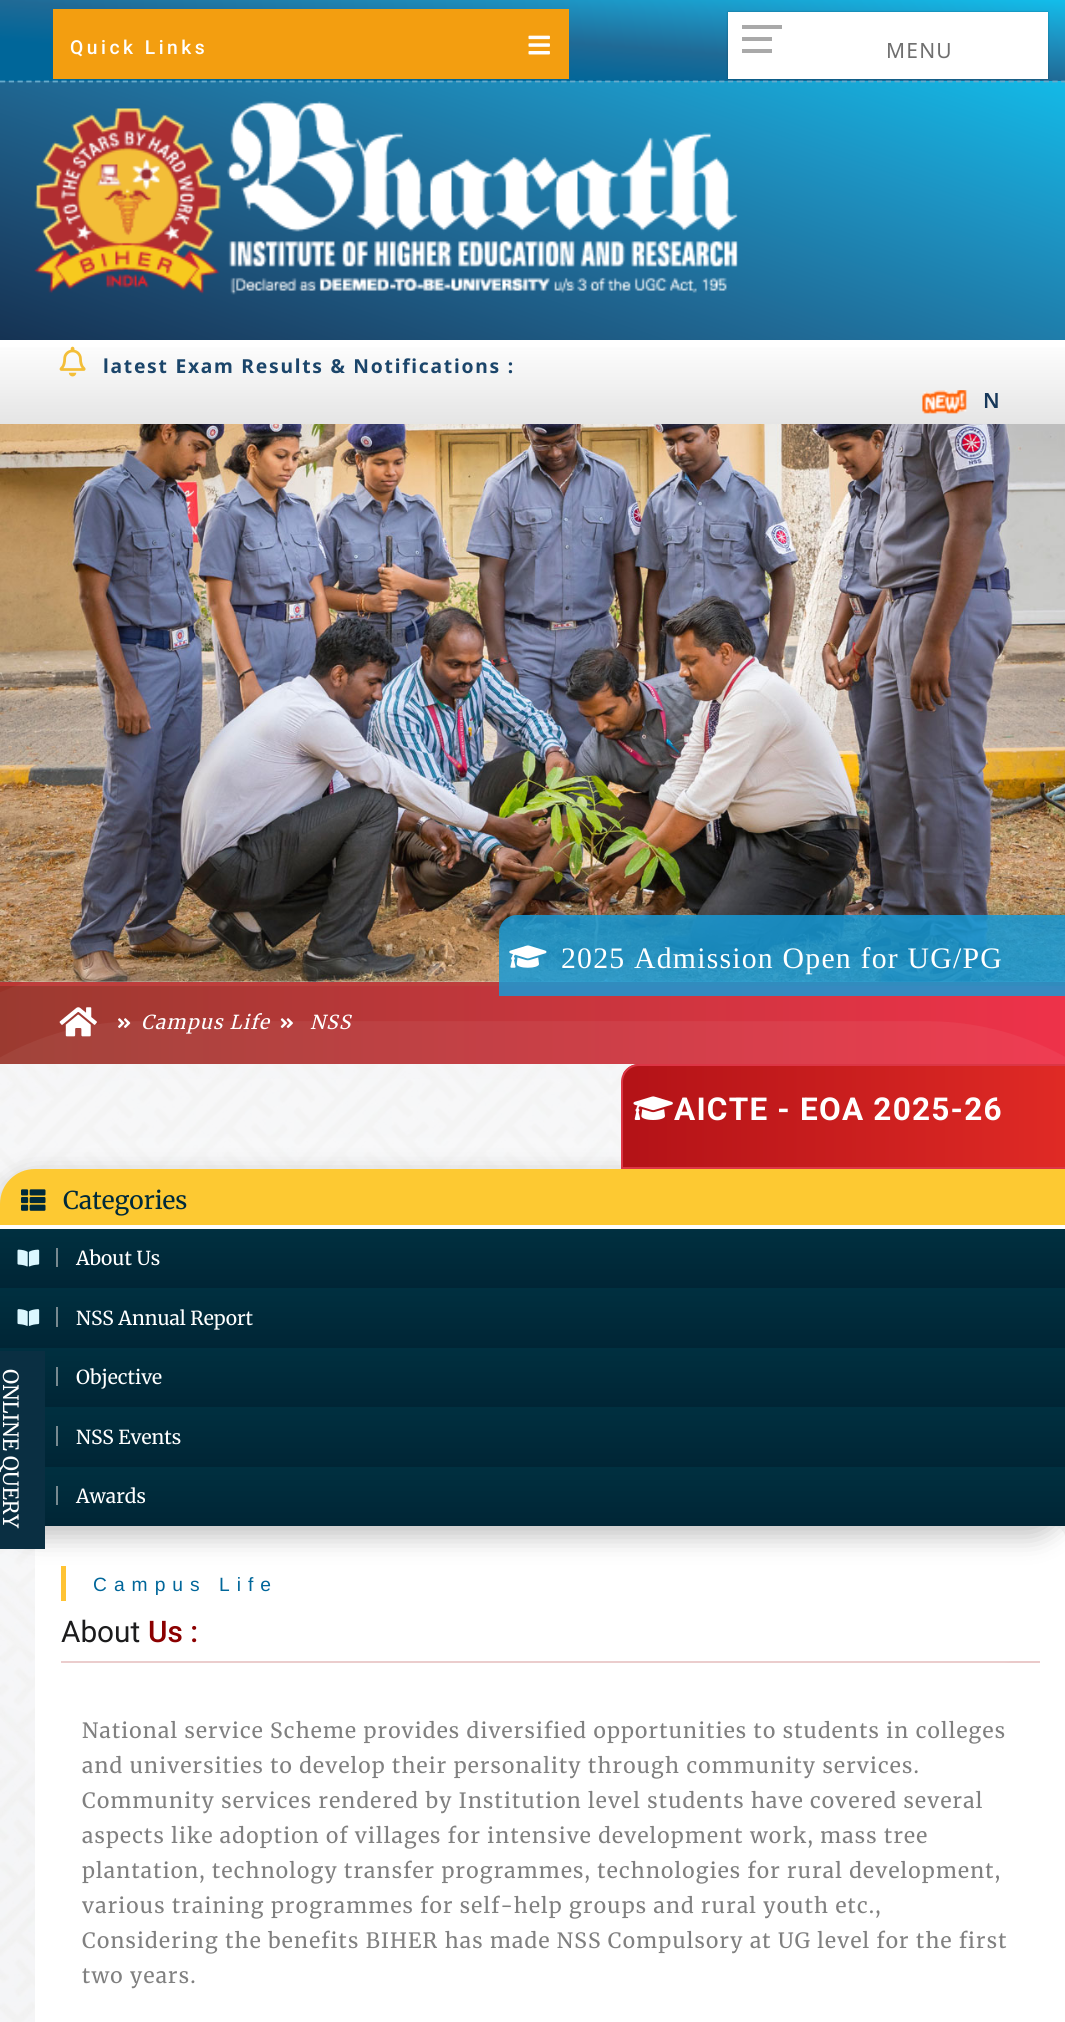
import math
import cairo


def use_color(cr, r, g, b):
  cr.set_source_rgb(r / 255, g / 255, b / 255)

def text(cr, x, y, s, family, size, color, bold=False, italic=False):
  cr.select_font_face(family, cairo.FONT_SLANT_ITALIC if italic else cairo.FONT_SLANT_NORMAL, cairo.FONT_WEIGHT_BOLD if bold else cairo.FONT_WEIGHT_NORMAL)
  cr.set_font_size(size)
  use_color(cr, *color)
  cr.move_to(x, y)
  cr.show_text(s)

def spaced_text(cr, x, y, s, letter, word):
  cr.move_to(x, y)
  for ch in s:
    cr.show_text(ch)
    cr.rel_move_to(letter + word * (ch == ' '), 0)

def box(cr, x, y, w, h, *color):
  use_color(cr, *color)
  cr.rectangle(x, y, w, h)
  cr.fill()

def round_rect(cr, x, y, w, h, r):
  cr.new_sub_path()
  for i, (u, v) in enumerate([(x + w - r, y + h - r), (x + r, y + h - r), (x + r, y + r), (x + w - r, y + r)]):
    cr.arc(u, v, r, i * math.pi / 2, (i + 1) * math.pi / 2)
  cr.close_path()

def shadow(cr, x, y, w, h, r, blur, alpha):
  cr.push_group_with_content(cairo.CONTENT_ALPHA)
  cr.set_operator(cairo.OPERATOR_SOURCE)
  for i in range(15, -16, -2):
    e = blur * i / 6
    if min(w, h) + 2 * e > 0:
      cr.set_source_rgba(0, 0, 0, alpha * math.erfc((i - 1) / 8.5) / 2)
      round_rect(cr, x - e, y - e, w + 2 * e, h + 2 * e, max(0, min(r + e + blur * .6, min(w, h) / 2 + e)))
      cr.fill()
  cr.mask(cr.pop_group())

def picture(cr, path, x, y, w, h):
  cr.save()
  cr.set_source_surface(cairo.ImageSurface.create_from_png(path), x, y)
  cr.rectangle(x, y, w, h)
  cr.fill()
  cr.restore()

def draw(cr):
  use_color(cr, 255, 255, 255)
  cr.paint()
  gradient = cairo.LinearGradient(527, 120, 539, -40)
  gradient.add_color_stop_rgba(0, 0, 0.4, 0.6, 1)
  gradient.add_color_stop_rgba(0.25, 0, 0.4, 0.6, 1)
  gradient.add_color_stop_rgba(0.5, 0.125, 0.416, 0.588, 1)
  gradient.add_color_stop_rgba(0.75, 0.114, 0.576, 0.761, 1)
  gradient.add_color_stop_rgba(1, 0.071, 0.745, 0.922, 1)
  cr.set_source(gradient)
  cr.rectangle(0, 0, 1065, 81)
  cr.fill()
  gradient = cairo.LinearGradient(527, 201, 539, 41)
  gradient.add_color_stop_rgba(0, 0, 0.4, 0.6, 1)
  gradient.add_color_stop_rgba(0.25, 0, 0.4, 0.6, 1)
  gradient.add_color_stop_rgba(0.5, 0.125, 0.416, 0.588, 1)
  gradient.add_color_stop_rgba(0.75, 0.114, 0.576, 0.761, 1)
  gradient.add_color_stop_rgba(1, 0.071, 0.745, 0.922, 1)
  cr.set_source(gradient)
  cr.rectangle(0, 81, 1065, 1)
  cr.fill()
  gradient = cairo.LinearGradient(422, 567, 643, -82)
  gradient.add_color_stop_rgba(0, 0.063, 0.137, 0.251, 1)
  gradient.add_color_stop_rgba(0.25, 0.106, 0.271, 0.416, 1)
  gradient.add_color_stop_rgba(0.5, 0.125, 0.416, 0.588, 1)
  gradient.add_color_stop_rgba(0.75, 0.114, 0.576, 0.761, 1)
  gradient.add_color_stop_rgba(1, 0.071, 0.745, 0.922, 1)
  cr.set_source(gradient)
  cr.rectangle(0, 82, 1065, 258)
  cr.fill()
  cr.new_path()
  cr.move_to(0, 81.5)
  cr.line_to(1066, 81.5)
  use_color(cr, 103, 170, 203)
  cr.set_line_width(1.8)
  cr.set_dash([5.25, 3.52])
  cr.stroke()
  box(cr, 53, 9, 516, 70, 243, 158, 16)
  picture(cr, "img_01.png", 528, 35, 22, 20)
  use_color(cr, 0, 0, 0)
  shadow(cr, 728, 12, 320, 67, 0, 1, 0.3)
  box(cr, 728, 12, 320, 67, 255, 255, 255)
  box(cr, 742, 37, 30, 4, 169, 169, 169)
  box(cr, 742, 25, 40, 4, 169, 169, 169)
  box(cr, 742, 49, 30, 4, 169, 169, 169)
  picture(cr, "img_02.png", 34, 101, 704, 194)
  gradient = cairo.LinearGradient(533, 424, 533, 340)
  gradient.add_color_stop_rgba(0, 0.898, 0.898, 0.898, 1)
  gradient.add_color_stop_rgba(0.25, 0.922, 0.922, 0.922, 1)
  gradient.add_color_stop_rgba(0.5, 0.949, 0.949, 0.949, 1)
  gradient.add_color_stop_rgba(0.75, 0.973, 0.973, 0.973, 1)
  gradient.add_color_stop_rgba(1, 1, 1, 1, 1)
  cr.set_source(gradient)
  cr.rectangle(0, 347, 1065, 77)
  cr.fill()
  picture(cr, "img_03.png", 59, 346, 27, 31)
  picture(cr, "img_04.png", 922, 390, 45, 24)
  picture(cr, "img_05.png", 0, 424, 1065, 558)
  use_color(cr, 119, 119, 119)
  shadow(cr, 4, 987, 1058, 75, 0, 5, 1)
  gradient = cairo.LinearGradient(0, 1025, 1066, 1025)
  gradient.add_color_stop_rgba(0, 0.576, 0.161, 0.118, 1)
  gradient.add_color_stop_rgba(1, 0.929, 0.129, 0.227, 1)
  cr.set_source(gradient)
  cr.rectangle(0, 986, 1065, 78)
  cr.fill()
  box(cr, 0, 982, 1065, 4, 184, 46, 43)
  picture(cr, "img_07.png", 59, 1007, 38, 30)
  picture(cr, "img_08.png", 118, 1018, 13, 10)
  picture(cr, "img_09.png", 280, 1018, 13, 10)
  picture(cr, "img_11.png", 0, 1064, 1065, 958)
  use_color(cr, 255, 255, 255)
  round_rect(cr, 35, 1526, 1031, 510, 14)
  cr.fill()
  box(cr, 61, 1566, 5, 35, 255, 182, 6)
  box(cr, 61, 1661, 979, 2, 232, 198, 198)
  use_color(cr, 255, 255, 255)
  shadow(cr, -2, 1167, 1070, 361, 37, 175, 0.5)
  cr.set_source_rgba(0.09, 0.608, 0.843, 0.84)
  cr.new_path()
  cr.move_to(517, 915)
  cr.line_to(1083, 915)
  cr.line_to(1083, 996)
  cr.line_to(499, 996)
  cr.line_to(499, 933)
  cr.curve_to(499, 923, 507, 915, 517, 915)
  cr.close_path()
  cr.fill()
  picture(cr, "img_06.png", 509, 945, 38, 23)
  use_color(cr, 0, 0, 0)
  shadow(cr, -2, 1176, 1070, 361, 37, 13, 0.24)
  cr.save()
  cr.new_path()
  cr.move_to(639, 1064)
  cr.line_to(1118, 1064)
  cr.line_to(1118, 1169)
  cr.line_to(621, 1169)
  cr.line_to(621, 1082)
  cr.curve_to(621, 1072, 629, 1064, 639, 1064)
  cr.close_path()
  cr.clip()
  gradient = cairo.LinearGradient(623, 1117, 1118, 1117)
  gradient.add_color_stop_rgba(0, 0.702, 0.071, 0.09, 1)
  gradient.add_color_stop_rgba(1, 0.898, 0.176, 0.153, 1)
  cr.set_source(gradient)
  cr.rectangle(623, 1064, 442, 103)
  cr.fill()
  cr.restore()
  use_color(cr, 220, 53, 69)
  cr.set_fill_rule(cairo.FILL_RULE_EVEN_ODD)
  cr.new_path()
  cr.move_to(639, 1064)
  cr.line_to(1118, 1064)
  cr.line_to(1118, 1169)
  cr.line_to(621, 1169)
  cr.line_to(621, 1082)
  cr.curve_to(621, 1072, 629, 1064, 639, 1064)
  cr.close_path()
  cr.move_to(639, 1066)
  cr.line_to(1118, 1066)
  cr.line_to(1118, 1167)
  cr.line_to(623, 1167)
  cr.line_to(623, 1082)
  cr.curve_to(623, 1073, 630, 1066, 639, 1066)
  cr.close_path()
  cr.fill()
  picture(cr, "img_10.png", 633, 1096, 40, 24)
  gradient = cairo.LinearGradient(533, 1348, 533, 1407)
  gradient.add_color_stop_rgba(0, 0, 0.188, 0.251, 1)
  gradient.add_color_stop_rgba(1, 0, 0.145, 0.208, 1)
  cr.set_source(gradient)
  cr.rectangle(0, 1348, 1065, 59)
  cr.fill()
  box(cr, 0, 1351, 45, 198, 10, 47, 66)
  use_color(cr, 253, 201, 50)
  cr.new_path()
  cr.move_to(35, 1169)
  cr.line_to(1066, 1169)
  cr.line_to(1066, 1229)
  cr.line_to(0, 1229)
  cr.line_to(0, 1204)
  cr.curve_to(0, 1184.5, 15.5, 1169, 35, 1169)
  cr.close_path()
  cr.fill()
  box(cr, 0, 1225, 1065, 4, 255, 255, 255)
  picture(cr, "img_12.png", 21, 1189, 25, 22)
  gradient = cairo.LinearGradient(533, 1229, 533, 1288)
  gradient.add_color_stop_rgba(0, 0, 0.188, 0.251, 1)
  gradient.add_color_stop_rgba(1, 0, 0.145, 0.208, 1)
  cr.set_source(gradient)
  cr.rectangle(0, 1229, 1065, 59)
  cr.fill()
  box(cr, 56, 1248, 2, 19, 119, 137, 144)
  picture(cr, "img_13.png", 17, 1249, 23, 18)
  gradient = cairo.LinearGradient(533, 1288, 533, 1348)
  gradient.add_color_stop_rgba(0, 0, 0.188, 0.251, 1)
  gradient.add_color_stop_rgba(1, 0, 0.145, 0.208, 1)
  cr.set_source(gradient)
  cr.rectangle(0, 1288, 1065, 60)
  cr.fill()
  box(cr, 56, 1307, 2, 20, 119, 137, 144)
  picture(cr, "img_14.png", 17, 1309, 23, 17)
  box(cr, 56, 1367, 2, 19, 119, 137, 144)
  gradient = cairo.LinearGradient(533, 1407, 533, 1467)
  gradient.add_color_stop_rgba(0, 0, 0.188, 0.251, 1)
  gradient.add_color_stop_rgba(1, 0, 0.145, 0.208, 1)
  cr.set_source(gradient)
  cr.rectangle(45, 1407, 1020, 60)
  cr.fill()
  box(cr, 56, 1426, 2, 20, 119, 137, 144)
  gradient = cairo.LinearGradient(533, 1467, 533, 1526)
  gradient.add_color_stop_rgba(0, 0, 0.188, 0.251, 1)
  gradient.add_color_stop_rgba(1, 0, 0.145, 0.208, 1)
  cr.set_source(gradient)
  cr.rectangle(45, 1467, 1020, 59)
  cr.fill()
  box(cr, 56, 1486, 2, 19, 119, 137, 144)
  cr.select_font_face("Roboto Medium")
  cr.set_font_size(19.25)
  use_color(cr, 255, 255, 255)
  spaced_text(cr, 70, 54, "Quick Links", 3.5, 0)
  cr.select_font_face("Noto Sans")
  cr.set_font_size(21)
  use_color(cr, 111, 111, 111)
  spaced_text(cr, 886, 58, "MENU", 1.22, 0)
  cr.select_font_face("Noto Sans", cairo.FONT_SLANT_NORMAL, cairo.FONT_WEIGHT_BOLD)
  cr.set_font_size(19.25)
  use_color(cr, 27, 69, 106)
  spaced_text(cr, 103, 373, "latest Exam Results & Notifications :", 1.75, 0)
  cr.select_font_face("Noto Sans SemiBold")
  cr.set_font_size(21)
  use_color(cr, 23, 56, 90)
  spaced_text(cr, 983, 408, "N", 1.75, 0)
  cr.select_font_face("Liberation Serif")
  cr.set_font_size(29.75)
  use_color(cr, 255, 255, 255)
  spaced_text(cr, 561, 968, "2025 Admission Open for UG/PG", 1.22, 0)
  cr.select_font_face("Merriweather Light", cairo.FONT_SLANT_ITALIC)
  cr.set_font_size(19.25)
  spaced_text(cr, 141, 1029, "Campus Life", 1.22, 0)
  spaced_text(cr, 310, 1029, "NSS", 1.22, 0)
  cr.select_font_face("Roboto", cairo.FONT_SLANT_NORMAL, cairo.FONT_WEIGHT_BOLD)
  cr.set_font_size(31.5)
  spaced_text(cr, 674, 1120, "AICTE - EOA 2025-26", 1.22, 0)
  cr.save()
  cr.translate(3, 1369)
  cr.rotate(90 * math.pi / 180)
  text(cr, 0, 0, "ONLINE QUERY", "Merriweather Light", 21, (255, 255, 255))
  cr.restore()
  text(cr, 63, 1209, "Categories", "Merriweather Light", 24.5, (0, 42, 58))
  text(cr, 76, 1265, "About Us", "Merriweather Light", 19.25, (255, 255, 255))
  text(cr, 76, 1325, "NSS Annual Report", "Merriweather Light", 19.25, (255, 255, 255))
  text(cr, 76, 1384, "Objective", "Merriweather Light", 19.25, (255, 255, 255))
  text(cr, 76, 1444, "NSS Events", "Merriweather Light", 19.25, (255, 255, 255))
  text(cr, 76, 1503, "Awards", "Merriweather Light", 19.25, (255, 255, 255))
  cr.select_font_face("Liberation Sans")
  use_color(cr, 0, 102, 154)
  spaced_text(cr, 93, 1591, "Campus Life", 7, 0)
  text(cr, 61, 1642, "About", "Roboto", 29.75, (28, 28, 29))
  text(cr, 148, 1642, "Us :", "Roboto Medium", 29.75, (139, 0, 0))
  cr.select_font_face("Merriweather Light")
  cr.set_font_size(21)
  use_color(cr, 128, 128, 128)
  spaced_text(cr, 82, 1738, "National service Scheme provides diversified opportunities to students in colleges", 1.22, 0)
  spaced_text(cr, 82, 1773, "and universities to develop their personality through community services.", 1.22, 0)
  spaced_text(cr, 82, 1808, "Community services rendered by Institution level students have covered several", 1.22, 0)
  spaced_text(cr, 82, 1843, "aspects like adoption of villages for intensive development work, mass tree", 1.22, 0)
  spaced_text(cr, 82, 1878, "plantation, technology transfer programmes, technologies for rural development,", 1.22, 0)
  spaced_text(cr, 82, 1913, "various training programmes for self-help groups and rural youth etc.,", 1.22, 0)
  spaced_text(cr, 82, 1948, "Considering the benefits BIHER has made NSS Compulsory at UG level for the first", 1.22, 0)
  spaced_text(cr, 82, 1983, "two years.", 1.22, 0)


surface = cairo.ImageSurface(cairo.FORMAT_RGB24, 1065, 2022)
cr = cairo.Context(surface)
options = cairo.FontOptions()
options.set_hint_metrics(cairo.HINT_METRICS_OFF)
options.set_hint_style(cairo.HINT_STYLE_NONE)
cr.set_font_options(options)
cr.set_miter_limit(4)
draw(cr)
surface.write_to_png("out.png")
